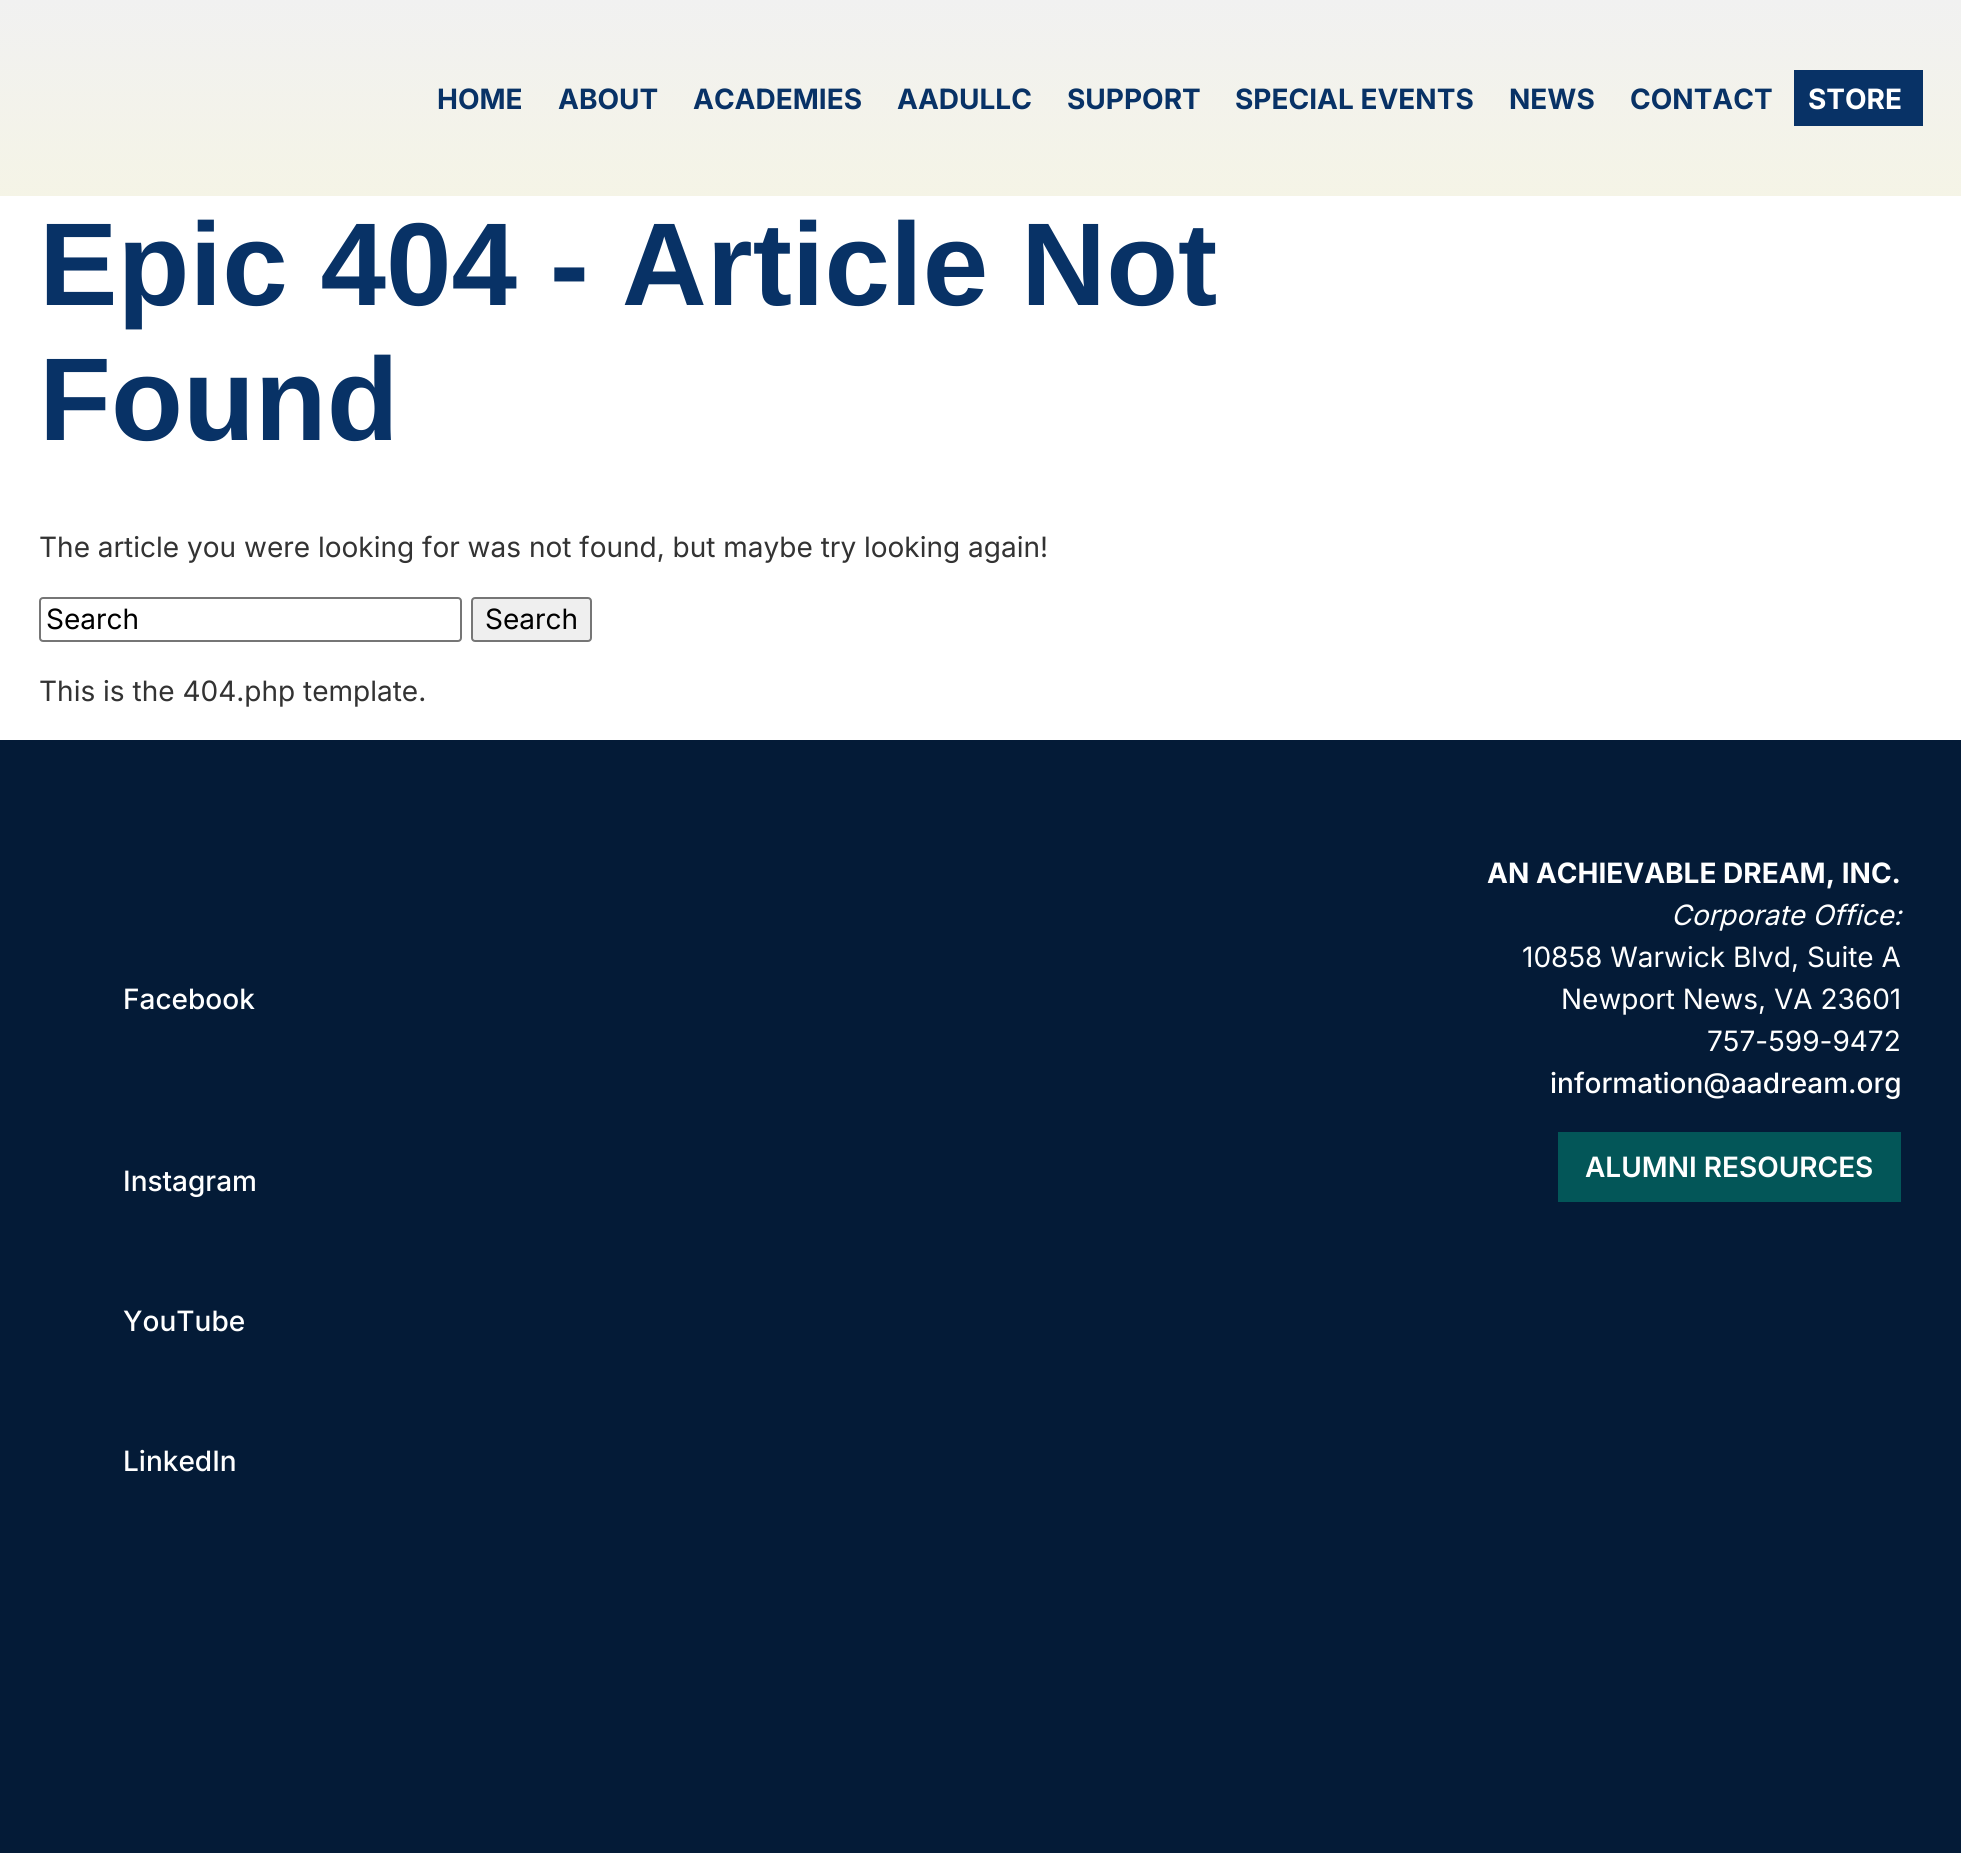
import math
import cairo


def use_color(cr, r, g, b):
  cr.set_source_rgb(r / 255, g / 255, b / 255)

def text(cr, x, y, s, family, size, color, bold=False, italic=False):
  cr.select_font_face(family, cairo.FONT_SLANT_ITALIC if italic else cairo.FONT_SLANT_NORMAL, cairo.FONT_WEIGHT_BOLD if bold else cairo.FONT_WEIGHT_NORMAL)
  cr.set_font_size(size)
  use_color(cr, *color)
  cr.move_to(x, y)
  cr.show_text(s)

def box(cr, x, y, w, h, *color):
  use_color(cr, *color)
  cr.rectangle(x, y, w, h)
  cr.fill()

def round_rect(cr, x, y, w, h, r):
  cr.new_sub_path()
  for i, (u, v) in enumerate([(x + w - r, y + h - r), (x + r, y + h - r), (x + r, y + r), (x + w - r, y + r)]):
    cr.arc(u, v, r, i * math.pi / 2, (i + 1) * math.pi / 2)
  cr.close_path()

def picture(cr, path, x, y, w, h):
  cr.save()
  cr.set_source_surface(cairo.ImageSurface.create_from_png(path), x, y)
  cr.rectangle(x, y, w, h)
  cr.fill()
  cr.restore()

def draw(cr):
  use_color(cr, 255, 255, 255)
  cr.paint()
  picture(cr, "img_01.png", 0, 0, 1961, 196)
  box(cr, 1794, 70, 129, 56, 8, 50, 102)
  round_rect(cr, 40, 598, 421, 43, 3)
  use_color(cr, 118, 118, 118)
  cr.stroke()
  use_color(cr, 239, 239, 239)
  round_rect(cr, 472, 598, 119, 43, 3)
  cr.fill_preserve()
  use_color(cr, 118, 118, 118)
  cr.stroke()
  box(cr, 0, 740, 1961, 1113, 4, 27, 55)
  box(cr, 1558, 1132, 343, 70, 3, 86, 88)
  text(cr, 437, 109, "HOME", "Inter", 28, (8, 50, 102), bold=True)
  text(cr, 558, 109, "ABOUT", "Inter", 28, (8, 50, 102), bold=True)
  text(cr, 693, 109, "ACADEMIES", "Inter", 28, (8, 50, 102), bold=True)
  text(cr, 897, 109, "AADULLC", "Inter", 28, (8, 50, 102), bold=True)
  text(cr, 1067, 109, "SUPPORT", "Inter", 28, (8, 50, 102), bold=True)
  text(cr, 1235, 109, "SPECIAL EVENTS", "Inter", 28, (8, 50, 102), bold=True)
  text(cr, 1509, 109, "NEWS", "Inter", 28, (8, 50, 102), bold=True)
  text(cr, 1630, 109, "CONTACT", "Inter", 28, (8, 50, 102), bold=True)
  text(cr, 1808, 109, "STORE", "Inter", 28, (255, 255, 255), bold=True)
  text(cr, 39, 305, "Epic 404 - Article Not", "Liberation Sans", 117.8, (8, 50, 102), bold=True)
  text(cr, 39, 440, "Found", "Liberation Sans", 117.8, (8, 50, 102), bold=True)
  text(cr, 39, 557, "The article you were looking for was not found, but maybe try looking again!", "Inter", 28, (51, 51, 51))
  text(cr, 46, 629, "Search", "Inter", 28, (0, 0, 0))
  text(cr, 485, 629, "Search", "Inter", 28, (0, 0, 0))
  text(cr, 39, 701, "This is the 404.php template.", "Inter", 28, (51, 51, 51))
  text(cr, 123, 1009, "Facebook", "Inter Medium", 28, (255, 255, 255))
  text(cr, 123, 1191, "Instagram", "Inter Medium", 28, (255, 255, 255))
  text(cr, 123, 1331, "YouTube", "Inter Medium", 28, (255, 255, 255))
  text(cr, 123, 1471, "LinkedIn", "Inter Medium", 28, (255, 255, 255))
  text(cr, 1487, 883, "AN ACHIEVABLE DREAM, INC.", "Inter", 28, (255, 255, 255), bold=True)
  text(cr, 1671, 925, "Corporate Office:", "Inter", 28, (255, 255, 255), italic=True)
  text(cr, 1522, 967, "10858 Warwick Blvd, Suite A", "Inter", 28, (255, 255, 255))
  text(cr, 1561, 1009, "Newport News, VA 23601", "Inter", 28, (255, 255, 255))
  text(cr, 1707, 1051, "757-599-9472", "Inter", 28, (255, 255, 255))
  text(cr, 1550, 1093, "information@aadream.org", "Inter Medium", 28, (255, 255, 255))
  text(cr, 1585, 1177, "ALUMNI RESOURCES", "Inter SemiBold", 28, (255, 255, 255))


surface = cairo.ImageSurface(cairo.FORMAT_RGB24, 1961, 1853)
cr = cairo.Context(surface)
options = cairo.FontOptions()
options.set_hint_metrics(cairo.HINT_METRICS_OFF)
options.set_hint_style(cairo.HINT_STYLE_NONE)
cr.set_font_options(options)
cr.set_miter_limit(4)
draw(cr)
surface.write_to_png("out.png")
